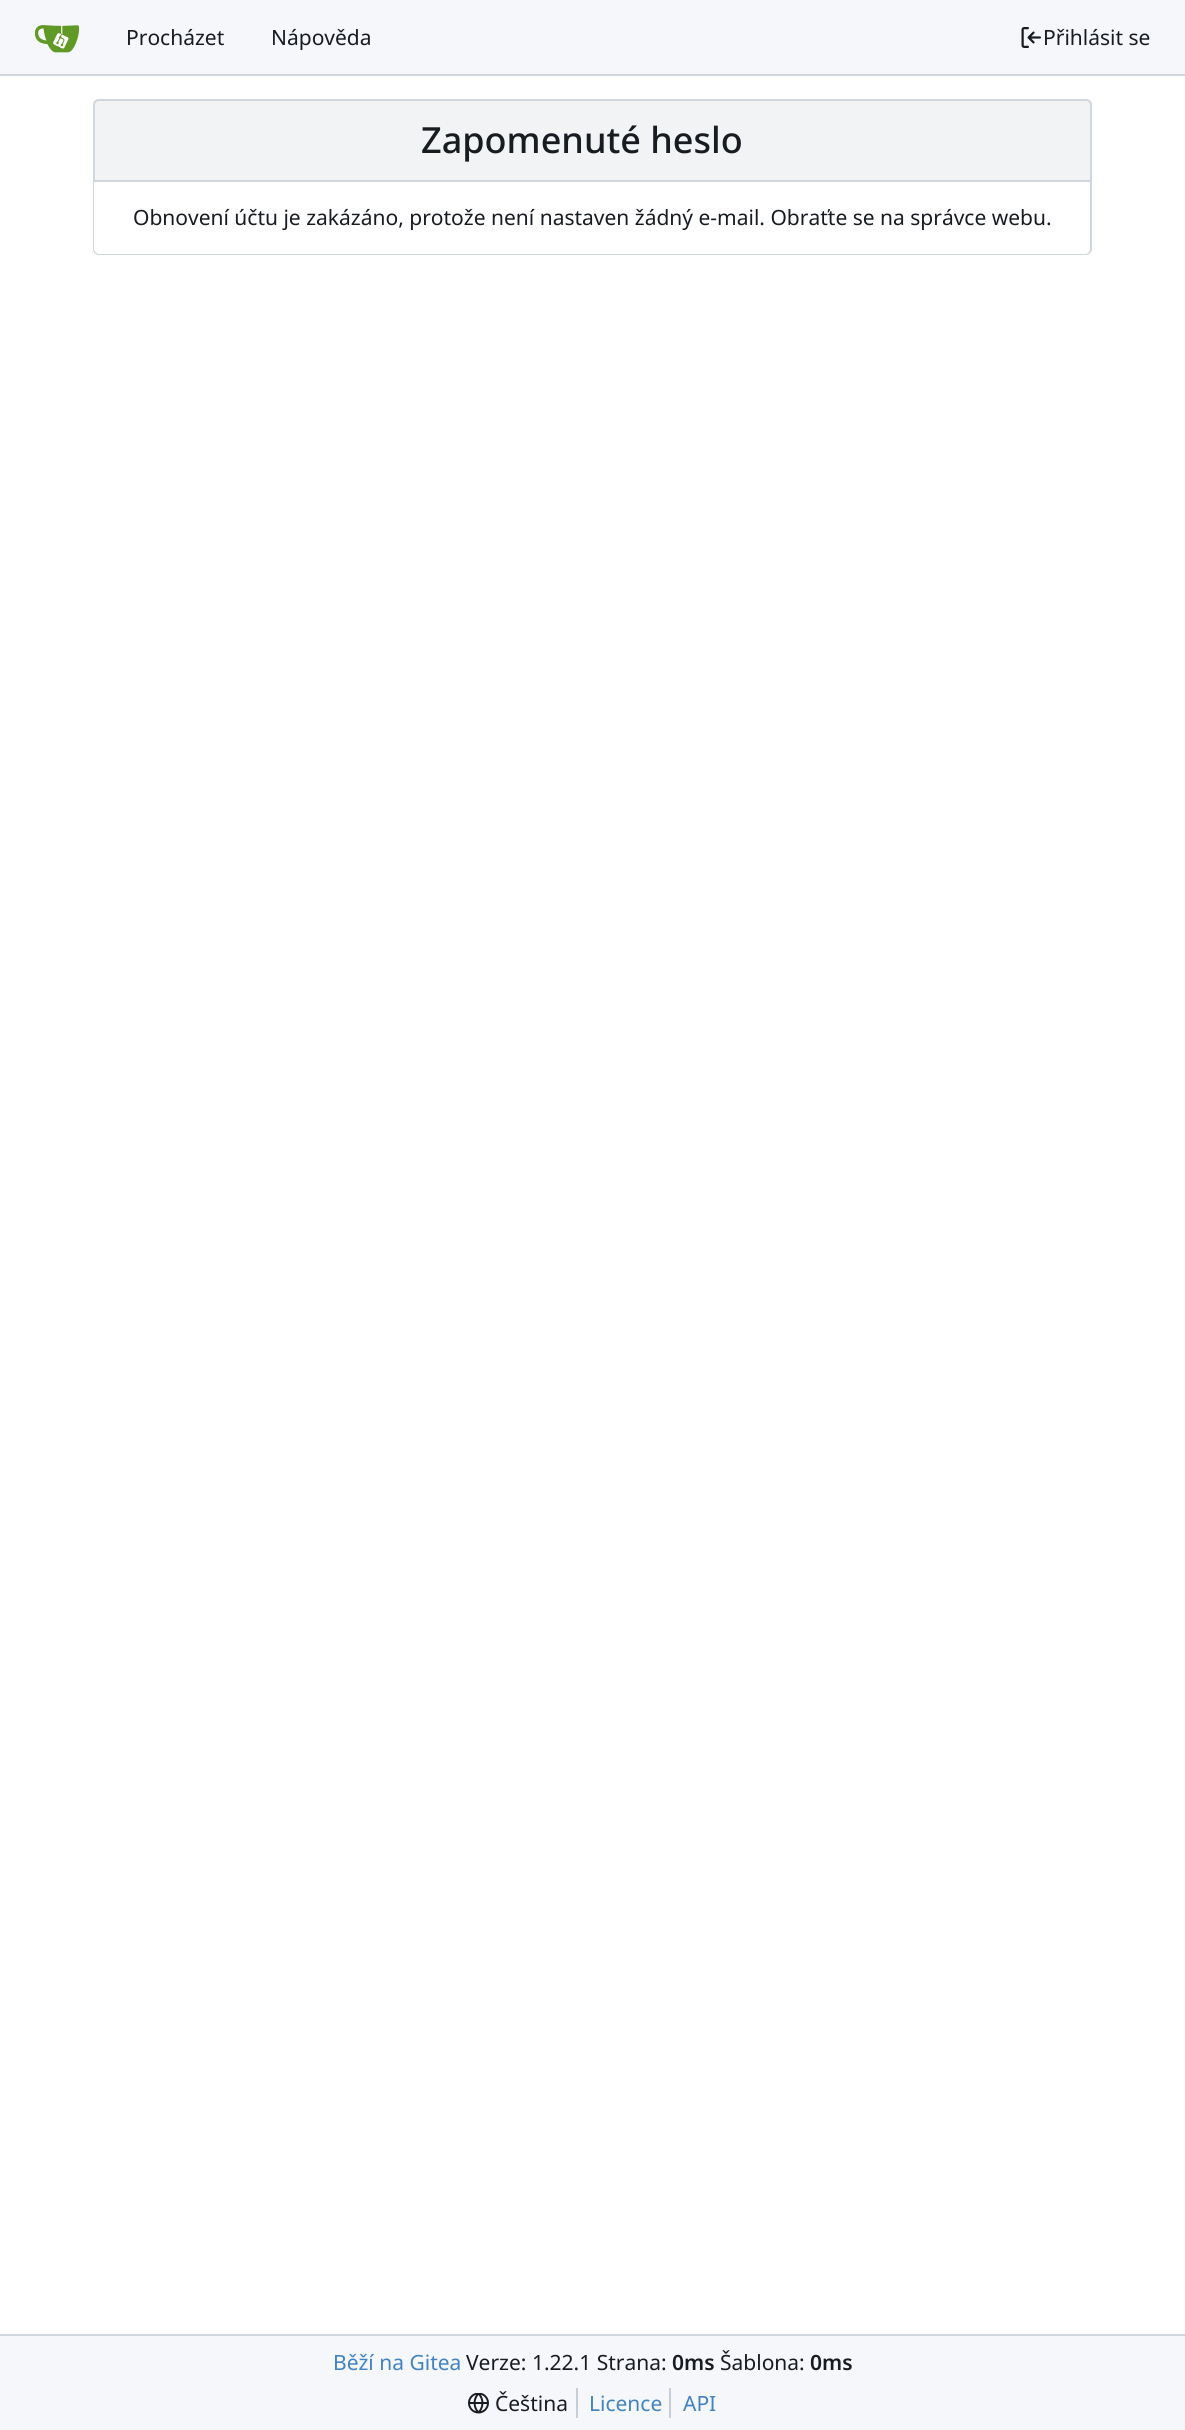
import math
import cairo


def use_color(cr, r, g, b):
  cr.set_source_rgb(r / 255, g / 255, b / 255)

def text(cr, x, y, s, family, size, color, bold=False, italic=False):
  cr.select_font_face(family, cairo.FONT_SLANT_ITALIC if italic else cairo.FONT_SLANT_NORMAL, cairo.FONT_WEIGHT_BOLD if bold else cairo.FONT_WEIGHT_NORMAL)
  cr.set_font_size(size)
  use_color(cr, *color)
  cr.move_to(x, y)
  cr.show_text(s)

def box(cr, x, y, w, h, *color):
  use_color(cr, *color)
  cr.rectangle(x, y, w, h)
  cr.fill()

def picture(cr, path, x, y, w, h):
  cr.save()
  cr.set_source_surface(cairo.ImageSurface.create_from_png(path), x, y)
  cr.rectangle(x, y, w, h)
  cr.fill()
  cr.restore()

def draw(cr):
  use_color(cr, 255, 255, 255)
  cr.paint()
  box(cr, 0, 0, 1185, 74, 246, 247, 250)
  box(cr, 0, 74, 1185, 2, 208, 215, 222)
  picture(cr, "img_01.png", 35, 25, 45, 28)
  picture(cr, "img_02.png", 1021, 27, 20, 21)
  use_color(cr, 241, 243, 245)
  cr.new_path()
  cr.move_to(99, 100)
  cr.line_to(1086, 100)
  cr.curve_to(1089, 100, 1091, 102, 1091, 105)
  cr.line_to(1091, 181)
  cr.line_to(94, 181)
  cr.line_to(94, 105)
  cr.curve_to(94, 102, 96, 100, 99, 100)
  cr.close_path()
  cr.fill_preserve()
  use_color(cr, 208, 215, 222)
  cr.stroke()
  cr.set_fill_rule(cairo.FILL_RULE_EVEN_ODD)
  cr.new_path()
  cr.move_to(93, 182)
  cr.line_to(1092, 182)
  cr.line_to(1092, 249)
  cr.curve_to(1092, 252, 1089, 255, 1086, 255)
  cr.line_to(99, 255)
  cr.curve_to(96, 255, 93, 252, 93, 249)
  cr.close_path()
  cr.move_to(94, 182)
  cr.line_to(1090, 182)
  cr.line_to(1090, 249)
  cr.curve_to(1090, 251, 1088, 254, 1086, 254)
  cr.line_to(99, 254)
  cr.curve_to(97, 254, 94, 251, 94, 249)
  cr.close_path()
  cr.fill()
  box(cr, 0, 2336, 1185, 94, 246, 247, 250)
  box(cr, 0, 2334, 1185, 2, 208, 215, 222)
  picture(cr, "img_03.png", 468, 2393, 21, 21)
  box(cr, 576, 2388, 2, 30, 199, 206, 213)
  box(cr, 669, 2388, 2, 30, 199, 206, 213)
  text(cr, 126, 45, "Procházet", "Noto Sans", 21, (24, 28, 33))
  text(cr, 271, 45, "Nápověda", "Noto Sans", 21, (24, 28, 33))
  text(cr, 1043, 45, "Přihlásit se", "Noto Sans", 21, (24, 28, 33))
  text(cr, 421, 153, "Zapomenuté heslo", "Noto Sans Medium", 36, (24, 28, 33))
  text(cr, 133, 225, "Obnovení účtu je zakázáno, protože není nastaven žádný e-mail. Obraťte se na správce webu.", "Noto Sans", 21, (24, 28, 33))
  text(cr, 333, 2370, "Běží na Gitea", "Noto Sans", 21, (65, 131, 196))
  text(cr, 466, 2370, "Verze: 1.22.1 Strana:", "Noto Sans", 21, (24, 28, 33))
  text(cr, 672, 2370, "0ms", "Noto Sans SemiBold", 21, (24, 28, 33))
  text(cr, 720, 2370, "Šablona:", "Noto Sans", 21, (24, 28, 33))
  text(cr, 810, 2370, "0ms", "Noto Sans SemiBold", 21, (24, 28, 33))
  text(cr, 495, 2411, "Čeština", "Noto Sans", 21, (24, 28, 33))
  text(cr, 589, 2411, "Licence", "Noto Sans", 21, (65, 131, 196))
  text(cr, 683, 2411, "API", "Noto Sans", 21, (65, 131, 196))


surface = cairo.ImageSurface(cairo.FORMAT_RGB24, 1185, 2430)
cr = cairo.Context(surface)
options = cairo.FontOptions()
options.set_hint_metrics(cairo.HINT_METRICS_OFF)
options.set_hint_style(cairo.HINT_STYLE_NONE)
cr.set_font_options(options)
cr.set_miter_limit(4)
draw(cr)
surface.write_to_png("out.png")
